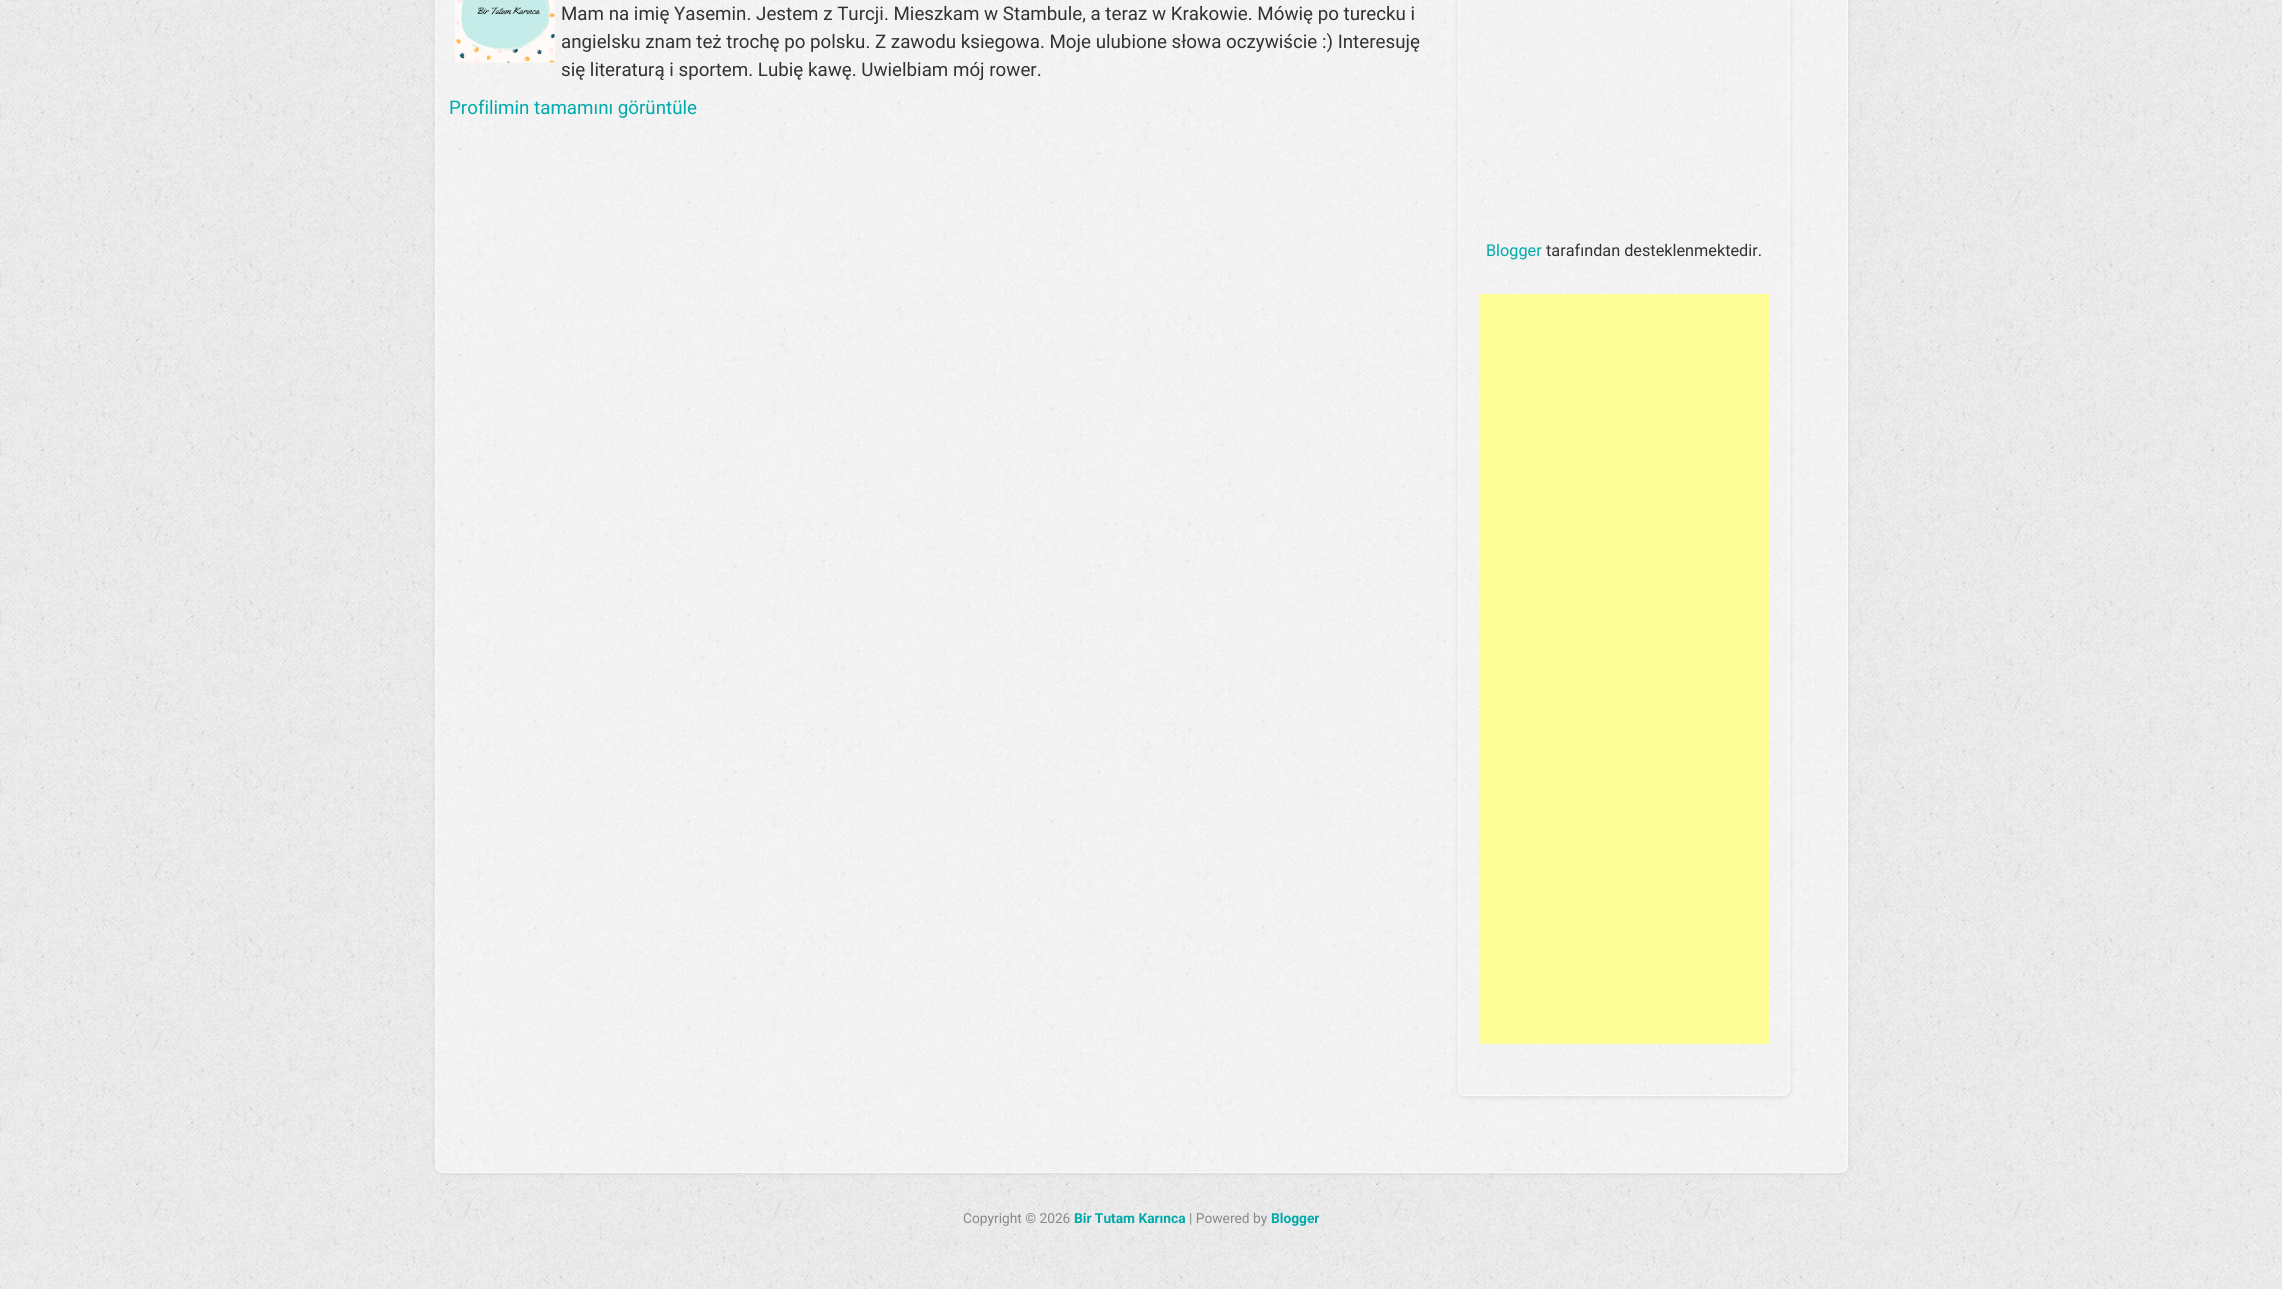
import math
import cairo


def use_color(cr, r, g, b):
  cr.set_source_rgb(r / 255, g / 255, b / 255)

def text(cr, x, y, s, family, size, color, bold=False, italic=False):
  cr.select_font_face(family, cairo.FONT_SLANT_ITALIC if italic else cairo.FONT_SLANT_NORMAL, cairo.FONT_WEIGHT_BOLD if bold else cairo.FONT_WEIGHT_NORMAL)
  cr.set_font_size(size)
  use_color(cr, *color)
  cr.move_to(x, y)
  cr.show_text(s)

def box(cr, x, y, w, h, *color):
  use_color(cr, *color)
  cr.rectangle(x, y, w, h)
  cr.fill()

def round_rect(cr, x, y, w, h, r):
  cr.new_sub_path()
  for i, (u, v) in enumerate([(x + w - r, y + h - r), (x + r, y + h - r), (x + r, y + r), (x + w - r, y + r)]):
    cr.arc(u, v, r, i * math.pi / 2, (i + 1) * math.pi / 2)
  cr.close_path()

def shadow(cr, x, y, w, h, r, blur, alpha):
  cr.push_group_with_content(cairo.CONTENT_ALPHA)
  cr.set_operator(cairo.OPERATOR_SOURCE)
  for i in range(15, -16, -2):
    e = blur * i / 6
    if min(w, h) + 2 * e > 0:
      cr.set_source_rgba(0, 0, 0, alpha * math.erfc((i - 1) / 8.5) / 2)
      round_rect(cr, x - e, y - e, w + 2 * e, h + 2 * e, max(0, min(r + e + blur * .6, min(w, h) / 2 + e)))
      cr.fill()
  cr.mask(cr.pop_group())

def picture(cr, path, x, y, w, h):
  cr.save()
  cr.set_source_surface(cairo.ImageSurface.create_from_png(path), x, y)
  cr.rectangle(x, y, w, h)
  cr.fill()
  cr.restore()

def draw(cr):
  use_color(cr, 255, 255, 255)
  cr.paint()
  picture(cr, "img_01.png", 0, 0, 2282, 1289)
  use_color(cr, 0, 0, 0)
  shadow(cr, 435, -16, 1413, 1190, 8, 2.5, 0.09)
  picture(cr, "img_02.png", 435, 0, 1413, 1173)
  round_rect(cr, 435.5, -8.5, 1412, 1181, 7.5)
  use_color(cr, 250, 250, 250)
  cr.set_line_width(1)
  cr.stroke()
  picture(cr, "img_03.png", 455, 0, 100, 63)
  use_color(cr, 0, 0, 0)
  shadow(cr, 1458, -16, 332, 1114, 8, 2.5, 0.09)
  picture(cr, "img_04.png", 1458, 0, 332, 1096)
  round_rect(cr, 1458.5, -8.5, 331, 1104, 7.5)
  use_color(cr, 250, 250, 250)
  cr.stroke()
  box(cr, 1479, 294, 290, 750, 255, 255, 153)
  text(cr, 561, 20, "Mam na imię Yasemin. Jestem z Turcji. Mieszkam w Stambule, a teraz w Krakowie. Mówię po turecku i", "Roboto", 18.75, (51, 51, 51))
  text(cr, 561, 48, "angielsku znam też trochę po polsku. Z zawodu ksiegowa. Moje ulubione słowa oczywiście :) Interesuję", "Roboto", 18.75, (51, 51, 51))
  text(cr, 561, 76, "się literaturą i sportem. Lubię kawę. Uwielbiam mój rower.", "Roboto", 18.75, (51, 51, 51))
  text(cr, 449, 114, "Profilimin tamamını görüntüle", "Roboto", 18.75, (0, 170, 170))
  text(cr, 1486, 256, "Blogger", "Roboto", 16.25, (0, 170, 170))
  text(cr, 1546, 256, "tarafından desteklenmektedir.", "Roboto", 16.25, (51, 51, 51))
  text(cr, 963, 1223, "Copyright © 2026", "Roboto", 13.75, (136, 136, 136))
  text(cr, 1074, 1223, "Bir Tutam Karınca", "Roboto", 13.75, (0, 170, 170), bold=True)
  text(cr, 1189, 1223, "| Powered by", "Roboto", 13.75, (136, 136, 136))
  text(cr, 1271, 1223, "Blogger", "Roboto", 13.75, (0, 170, 170), bold=True)


surface = cairo.ImageSurface(cairo.FORMAT_RGB24, 2282, 1289)
cr = cairo.Context(surface)
options = cairo.FontOptions()
options.set_hint_metrics(cairo.HINT_METRICS_OFF)
options.set_hint_style(cairo.HINT_STYLE_NONE)
cr.set_font_options(options)
cr.set_miter_limit(4)
draw(cr)
surface.write_to_png("out.png")
